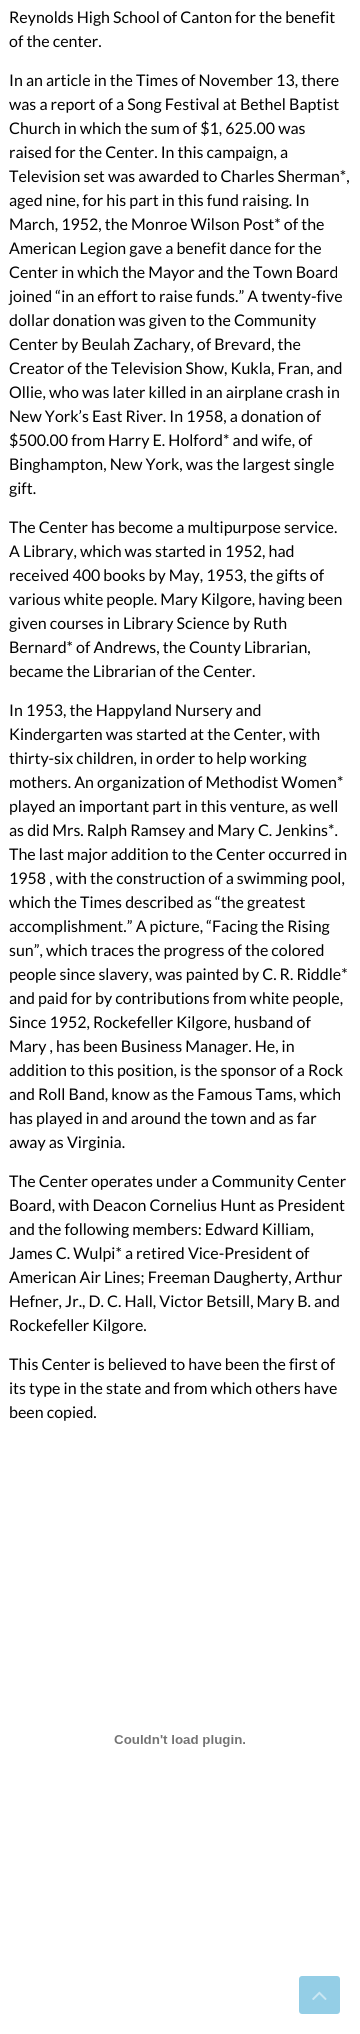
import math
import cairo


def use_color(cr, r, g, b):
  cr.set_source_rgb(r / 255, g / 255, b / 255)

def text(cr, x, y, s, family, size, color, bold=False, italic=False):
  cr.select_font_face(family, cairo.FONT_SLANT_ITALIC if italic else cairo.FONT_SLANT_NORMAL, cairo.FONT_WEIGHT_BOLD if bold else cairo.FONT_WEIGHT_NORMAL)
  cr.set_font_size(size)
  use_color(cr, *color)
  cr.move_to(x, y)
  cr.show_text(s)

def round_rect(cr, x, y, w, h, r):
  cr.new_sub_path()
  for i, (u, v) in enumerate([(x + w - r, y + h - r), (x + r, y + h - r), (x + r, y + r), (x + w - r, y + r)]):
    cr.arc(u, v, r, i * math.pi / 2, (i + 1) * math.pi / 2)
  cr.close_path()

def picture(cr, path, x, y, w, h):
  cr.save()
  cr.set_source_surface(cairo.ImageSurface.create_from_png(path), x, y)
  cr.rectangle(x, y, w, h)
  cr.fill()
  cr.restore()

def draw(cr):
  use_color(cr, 255, 255, 255)
  cr.paint()
  picture(cr, "img_01.png", 114, 1735, 131, 12)
  use_color(cr, 148, 206, 230)
  round_rect(cr, 299, 1976, 41, 38, 3)
  cr.fill()
  picture(cr, "img_02.png", 312, 1991, 15, 9)
  text(cr, 9, 23, "Reynolds High School of Canton for the benefit", "Lato", 16, (0, 0, 0))
  text(cr, 9, 47, "of the center.", "Lato", 16, (0, 0, 0))
  text(cr, 9, 86, "In an article in the Times of November 13, there", "Lato", 16, (0, 0, 0))
  text(cr, 9, 110, "was a report of a Song Festival at Bethel Baptist", "Lato", 16, (0, 0, 0))
  text(cr, 9, 134, "Church in which the sum of $1, 625.00 was", "Lato", 16, (0, 0, 0))
  text(cr, 9, 158, "raised for the Center. In this campaign, a", "Lato", 16, (0, 0, 0))
  text(cr, 9, 182, "Television set was awarded to Charles Sherman*,", "Lato", 16, (0, 0, 0))
  text(cr, 9, 206, "aged nine, for his part in this fund raising. In", "Lato", 16, (0, 0, 0))
  text(cr, 9, 230, "March, 1952, the Monroe Wilson Post* of the", "Lato", 16, (0, 0, 0))
  text(cr, 9, 254, "American Legion gave a benefit dance for the", "Lato", 16, (0, 0, 0))
  text(cr, 9, 278, "Center in which the Mayor and the Town Board", "Lato", 16, (0, 0, 0))
  text(cr, 9, 302, "joined “in an effort to raise funds.” A twenty-five", "Lato", 16, (0, 0, 0))
  text(cr, 9, 326, "dollar donation was given to the Community", "Lato", 16, (0, 0, 0))
  text(cr, 9, 350, "Center by Beulah Zachary, of Brevard, the", "Lato", 16, (0, 0, 0))
  text(cr, 9, 374, "Creator of the Television Show, Kukla, Fran, and", "Lato", 16, (0, 0, 0))
  text(cr, 9, 398, "Ollie, who was later killed in an airplane crash in", "Lato", 16, (0, 0, 0))
  text(cr, 9, 422, "New York’s East River. In 1958, a donation of", "Lato", 16, (0, 0, 0))
  text(cr, 9, 446, "$500.00 from Harry E. Holford* and wife, of", "Lato", 16, (0, 0, 0))
  text(cr, 9, 470, "Binghampton, New York, was the largest single", "Lato", 16, (0, 0, 0))
  text(cr, 9, 494, "gift.", "Lato", 16, (0, 0, 0))
  text(cr, 9, 533, "The Center has become a multipurpose service.", "Lato", 16, (0, 0, 0))
  text(cr, 9, 557, "A Library, which was started in 1952, had", "Lato", 16, (0, 0, 0))
  text(cr, 9, 581, "received 400 books by May, 1953, the gifts of", "Lato", 16, (0, 0, 0))
  text(cr, 9, 605, "various white people. Mary Kilgore, having been", "Lato", 16, (0, 0, 0))
  text(cr, 9, 629, "given courses in Library Science by Ruth", "Lato", 16, (0, 0, 0))
  text(cr, 9, 653, "Bernard* of Andrews, the County Librarian,", "Lato", 16, (0, 0, 0))
  text(cr, 9, 677, "became the Librarian of the Center.", "Lato", 16, (0, 0, 0))
  text(cr, 9, 716, "In 1953, the Happyland Nursery and", "Lato", 16, (0, 0, 0))
  text(cr, 9, 740, "Kindergarten was started at the Center, with", "Lato", 16, (0, 0, 0))
  text(cr, 9, 764, "thirty-six children, in order to help working", "Lato", 16, (0, 0, 0))
  text(cr, 9, 788, "mothers. An organization of Methodist Women*", "Lato", 16, (0, 0, 0))
  text(cr, 9, 812, "played an important part in this venture, as well", "Lato", 16, (0, 0, 0))
  text(cr, 9, 836, "as did Mrs. Ralph Ramsey and Mary C. Jenkins*.", "Lato", 16, (0, 0, 0))
  text(cr, 9, 860, "The last major addition to the Center occurred in", "Lato", 16, (0, 0, 0))
  text(cr, 9, 884, "1958 , with the construction of a swimming pool,", "Lato", 16, (0, 0, 0))
  text(cr, 9, 908, "which the Times described as “the greatest", "Lato", 16, (0, 0, 0))
  text(cr, 9, 932, "accomplishment.” A picture, “Facing the Rising", "Lato", 16, (0, 0, 0))
  text(cr, 9, 956, "sun”, which traces the progress of the colored", "Lato", 16, (0, 0, 0))
  text(cr, 9, 980, "people since slavery, was painted by C. R. Riddle*", "Lato", 16, (0, 0, 0))
  text(cr, 9, 1004, "and paid for by contributions from white people,", "Lato", 16, (0, 0, 0))
  text(cr, 9, 1028, "Since 1952, Rockefeller Kilgore, husband of", "Lato", 16, (0, 0, 0))
  text(cr, 9, 1052, "Mary , has been Business Manager. He, in", "Lato", 16, (0, 0, 0))
  text(cr, 9, 1076, "addition to this position, is the sponsor of a Rock", "Lato", 16, (0, 0, 0))
  text(cr, 9, 1100, "and Roll Band, know as the Famous Tams, which", "Lato", 16, (0, 0, 0))
  text(cr, 9, 1124, "has played in and around the town and as far", "Lato", 16, (0, 0, 0))
  text(cr, 9, 1148, "away as Virginia.", "Lato", 16, (0, 0, 0))
  text(cr, 9, 1187, "The Center operates under a Community Center", "Lato", 16, (0, 0, 0))
  text(cr, 9, 1211, "Board, with Deacon Cornelius Hunt as President", "Lato", 16, (0, 0, 0))
  text(cr, 9, 1235, "and the following members: Edward Killiam,", "Lato", 16, (0, 0, 0))
  text(cr, 9, 1259, "James C. Wulpi* a retired Vice-President of", "Lato", 16, (0, 0, 0))
  text(cr, 9, 1283, "American Air Lines; Freeman Daugherty, Arthur", "Lato", 16, (0, 0, 0))
  text(cr, 9, 1307, "Hefner, Jr., D. C. Hall, Victor Betsill, Mary B. and", "Lato", 16, (0, 0, 0))
  text(cr, 9, 1331, "Rockefeller Kilgore.", "Lato", 16, (0, 0, 0))
  text(cr, 9, 1370, "This Center is believed to have been the first of", "Lato", 16, (0, 0, 0))
  text(cr, 9, 1394, "its type in the state and from which others have", "Lato", 16, (0, 0, 0))
  text(cr, 9, 1418, "been copied.", "Lato", 16, (0, 0, 0))


surface = cairo.ImageSurface(cairo.FORMAT_RGB24, 360, 2034)
cr = cairo.Context(surface)
options = cairo.FontOptions()
options.set_hint_metrics(cairo.HINT_METRICS_OFF)
options.set_hint_style(cairo.HINT_STYLE_NONE)
cr.set_font_options(options)
cr.set_miter_limit(4)
draw(cr)
surface.write_to_png("out.png")
